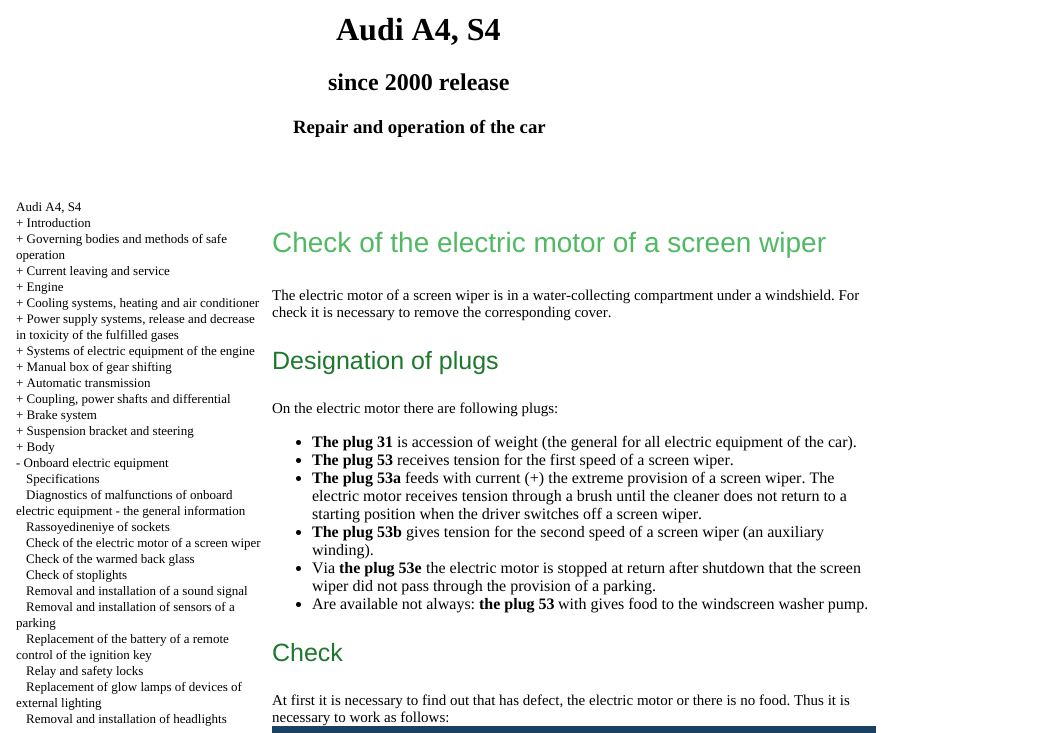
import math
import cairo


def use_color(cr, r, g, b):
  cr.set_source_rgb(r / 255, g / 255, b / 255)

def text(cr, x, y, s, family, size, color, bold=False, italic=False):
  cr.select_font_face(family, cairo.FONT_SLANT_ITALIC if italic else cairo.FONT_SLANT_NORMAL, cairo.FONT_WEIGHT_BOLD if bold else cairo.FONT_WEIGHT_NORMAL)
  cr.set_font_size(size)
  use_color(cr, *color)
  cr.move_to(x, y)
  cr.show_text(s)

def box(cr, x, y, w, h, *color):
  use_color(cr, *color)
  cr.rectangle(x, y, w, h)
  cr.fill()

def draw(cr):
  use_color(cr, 255, 255, 255)
  cr.paint()
  use_color(cr, 0, 0, 0)
  cr.arc(298.5, 442.5, 2.5, 0, 2 * math.pi)
  cr.fill()
  cr.arc(298.5, 460.5, 2.5, 0, 2 * math.pi)
  cr.fill()
  cr.arc(298.5, 478.5, 2.5, 0, 2 * math.pi)
  cr.fill()
  cr.arc(298.5, 532.5, 2.5, 0, 2 * math.pi)
  cr.fill()
  cr.arc(298.5, 568.5, 2.5, 0, 2 * math.pi)
  cr.fill()
  cr.arc(298.5, 604.5, 2.5, 0, 2 * math.pi)
  cr.fill()
  box(cr, 272, 726, 604, 7, 25, 65, 100)
  text(cr, 336, 40, "Audi A4, S4", "Liberation Serif", 32, (0, 0, 0), bold=True)
  text(cr, 328, 90, "since 2000 release", "Liberation Serif", 24, (0, 0, 0), bold=True)
  text(cr, 293, 133, "Repair and operation of the car", "Liberation Serif", 18.75, (0, 0, 0), bold=True)
  text(cr, 16, 211, "Audi A4, S4", "Liberation Serif", 13, (0, 0, 0))
  text(cr, 16, 227, "+ Introduction", "Liberation Serif", 13, (0, 0, 0))
  text(cr, 16, 243, "+ Governing bodies and methods of safe", "Liberation Serif", 13, (0, 0, 0))
  text(cr, 16, 259, "operation", "Liberation Serif", 13, (0, 0, 0))
  text(cr, 16, 275, "+ Current leaving and service", "Liberation Serif", 13, (0, 0, 0))
  text(cr, 16, 291, "+ Engine", "Liberation Serif", 13, (0, 0, 0))
  text(cr, 16, 307, "+ Cooling systems, heating and air conditioner", "Liberation Serif", 13, (0, 0, 0))
  text(cr, 16, 323, "+ Power supply systems, release and decrease", "Liberation Serif", 13, (0, 0, 0))
  text(cr, 16, 339, "in toxicity of the fulfilled gases", "Liberation Serif", 13, (0, 0, 0))
  text(cr, 16, 355, "+ Systems of electric equipment of the engine", "Liberation Serif", 13, (0, 0, 0))
  text(cr, 16, 371, "+ Manual box of gear shifting", "Liberation Serif", 13, (0, 0, 0))
  text(cr, 16, 387, "+ Automatic transmission", "Liberation Serif", 13, (0, 0, 0))
  text(cr, 16, 403, "+ Coupling, power shafts and differential", "Liberation Serif", 13, (0, 0, 0))
  text(cr, 16, 419, "+ Brake system", "Liberation Serif", 13, (0, 0, 0))
  text(cr, 16, 435, "+ Suspension bracket and steering", "Liberation Serif", 13, (0, 0, 0))
  text(cr, 16, 451, "+ Body", "Liberation Serif", 13, (0, 0, 0))
  text(cr, 16, 467, "- Onboard electric equipment", "Liberation Serif", 13, (0, 0, 0))
  text(cr, 26, 483, "Specifications", "Liberation Serif", 13, (0, 0, 0))
  text(cr, 26, 499, "Diagnostics of malfunctions of onboard", "Liberation Serif", 13, (0, 0, 0))
  text(cr, 16, 515, "electric equipment - the general information", "Liberation Serif", 13, (0, 0, 0))
  text(cr, 26, 531, "Rassoyedineniye of sockets", "Liberation Serif", 13, (0, 0, 0))
  text(cr, 26, 547, "Check of the electric motor of a screen wiper", "Liberation Serif", 13, (0, 0, 0))
  text(cr, 26, 563, "Check of the warmed back glass", "Liberation Serif", 13, (0, 0, 0))
  text(cr, 26, 579, "Check of stoplights", "Liberation Serif", 13, (0, 0, 0))
  text(cr, 26, 595, "Removal and installation of a sound signal", "Liberation Serif", 13, (0, 0, 0))
  text(cr, 26, 611, "Removal and installation of sensors of a", "Liberation Serif", 13, (0, 0, 0))
  text(cr, 16, 627, "parking", "Liberation Serif", 13, (0, 0, 0))
  text(cr, 26, 643, "Replacement of the battery of a remote", "Liberation Serif", 13, (0, 0, 0))
  text(cr, 16, 659, "control of the ignition key", "Liberation Serif", 13, (0, 0, 0))
  text(cr, 26, 675, "Relay and safety locks", "Liberation Serif", 13, (0, 0, 0))
  text(cr, 26, 691, "Replacement of glow lamps of devices of", "Liberation Serif", 13, (0, 0, 0))
  text(cr, 16, 707, "external lighting", "Liberation Serif", 13, (0, 0, 0))
  text(cr, 26, 723, "Removal and installation of headlights", "Liberation Serif", 13, (0, 0, 0))
  text(cr, 272, 252, "Check of the electric motor of a screen wiper", "Liberation Sans", 28, (81, 185, 99))
  text(cr, 272, 300, "The electric motor of a screen wiper is in a water-collecting compartment under a windshield. For", "Liberation Serif", 15, (0, 0, 0))
  text(cr, 272, 317, "check it is necessary to remove the corresponding cover.", "Liberation Serif", 15, (0, 0, 0))
  text(cr, 272, 369, "Designation of plugs", "Liberation Sans", 25, (29, 120, 46))
  text(cr, 272, 413, "On the electric motor there are following plugs:", "Liberation Serif", 15, (0, 0, 0))
  text(cr, 312, 447, "The plug 31", "Liberation Serif", 16, (0, 0, 0), bold=True)
  text(cr, 397, 447, "is accession of weight (the general for all electric equipment of the car).", "Liberation Serif", 16, (0, 0, 0))
  text(cr, 312, 465, "The plug 53", "Liberation Serif", 16, (0, 0, 0), bold=True)
  text(cr, 397, 465, "receives tension for the first speed of a screen wiper.", "Liberation Serif", 16, (0, 0, 0))
  text(cr, 312, 483, "The plug 53a", "Liberation Serif", 16, (0, 0, 0), bold=True)
  text(cr, 405, 483, "feeds with current (+) the extreme provision of a screen wiper. The", "Liberation Serif", 16, (0, 0, 0))
  text(cr, 312, 501, "electric motor receives tension through a brush until the cleaner does not return to a", "Liberation Serif", 16, (0, 0, 0))
  text(cr, 312, 519, "starting position when the driver switches off a screen wiper.", "Liberation Serif", 16, (0, 0, 0))
  text(cr, 312, 537, "The plug 53b", "Liberation Serif", 16, (0, 0, 0), bold=True)
  text(cr, 406, 537, "gives tension for the second speed of a screen wiper (an auxiliary", "Liberation Serif", 16, (0, 0, 0))
  text(cr, 312, 555, "winding).", "Liberation Serif", 16, (0, 0, 0))
  text(cr, 312, 573, "Via", "Liberation Serif", 16, (0, 0, 0))
  text(cr, 339, 573, "the plug 53e", "Liberation Serif", 16, (0, 0, 0), bold=True)
  text(cr, 426, 573, "the electric motor is stopped at return after shutdown that the screen", "Liberation Serif", 16, (0, 0, 0))
  text(cr, 312, 591, "wiper did not pass through the provision of a parking.", "Liberation Serif", 16, (0, 0, 0))
  text(cr, 312, 609, "Are available not always:", "Liberation Serif", 16, (0, 0, 0))
  text(cr, 479, 609, "the plug 53", "Liberation Serif", 16, (0, 0, 0), bold=True)
  text(cr, 558, 609, "with gives food to the windscreen washer pump.", "Liberation Serif", 16, (0, 0, 0))
  text(cr, 272, 661, "Check", "Liberation Sans", 25, (29, 120, 46))
  text(cr, 272, 705, "At first it is necessary to find out that has defect, the electric motor or there is no food. Thus it is", "Liberation Serif", 15, (0, 0, 0))
  text(cr, 272, 722, "necessary to work as follows:", "Liberation Serif", 15, (0, 0, 0))


surface = cairo.ImageSurface(cairo.FORMAT_RGB24, 1047, 733)
cr = cairo.Context(surface)
options = cairo.FontOptions()
options.set_hint_metrics(cairo.HINT_METRICS_OFF)
options.set_hint_style(cairo.HINT_STYLE_NONE)
cr.set_font_options(options)
cr.set_miter_limit(4)
draw(cr)
surface.write_to_png("out.png")
